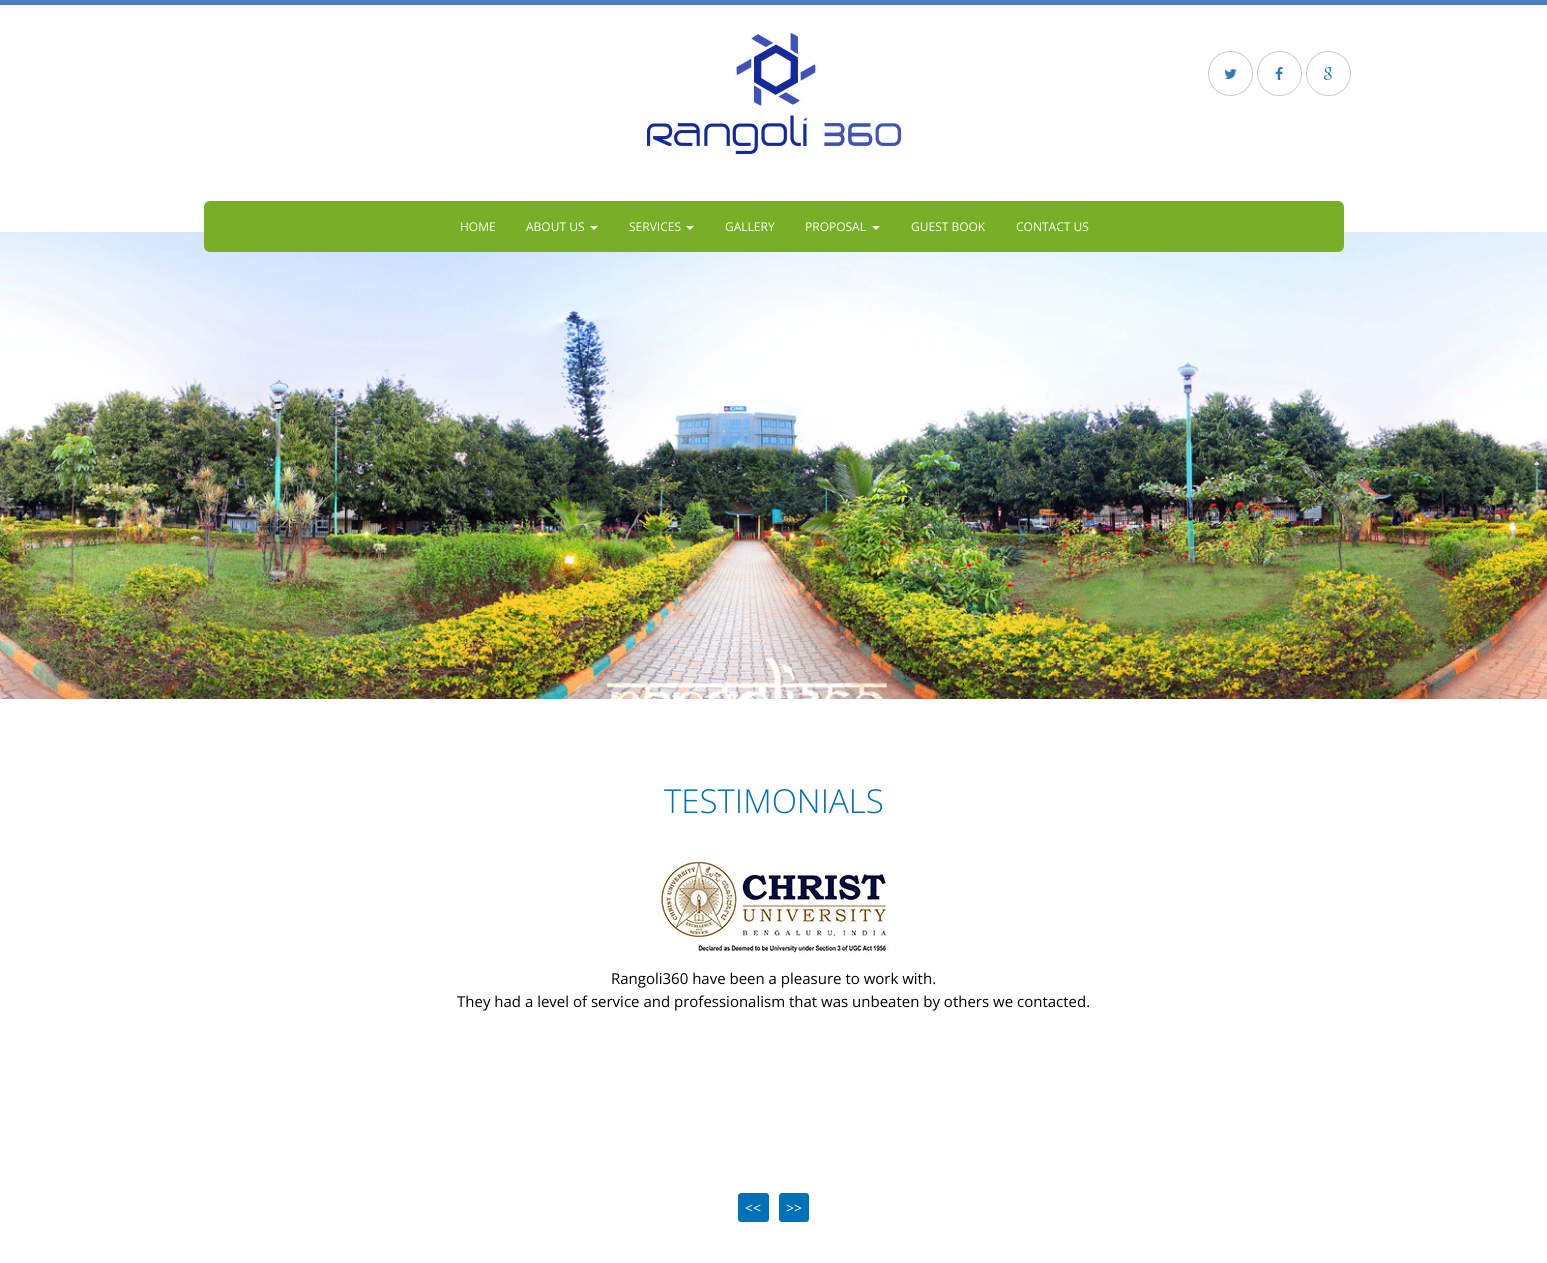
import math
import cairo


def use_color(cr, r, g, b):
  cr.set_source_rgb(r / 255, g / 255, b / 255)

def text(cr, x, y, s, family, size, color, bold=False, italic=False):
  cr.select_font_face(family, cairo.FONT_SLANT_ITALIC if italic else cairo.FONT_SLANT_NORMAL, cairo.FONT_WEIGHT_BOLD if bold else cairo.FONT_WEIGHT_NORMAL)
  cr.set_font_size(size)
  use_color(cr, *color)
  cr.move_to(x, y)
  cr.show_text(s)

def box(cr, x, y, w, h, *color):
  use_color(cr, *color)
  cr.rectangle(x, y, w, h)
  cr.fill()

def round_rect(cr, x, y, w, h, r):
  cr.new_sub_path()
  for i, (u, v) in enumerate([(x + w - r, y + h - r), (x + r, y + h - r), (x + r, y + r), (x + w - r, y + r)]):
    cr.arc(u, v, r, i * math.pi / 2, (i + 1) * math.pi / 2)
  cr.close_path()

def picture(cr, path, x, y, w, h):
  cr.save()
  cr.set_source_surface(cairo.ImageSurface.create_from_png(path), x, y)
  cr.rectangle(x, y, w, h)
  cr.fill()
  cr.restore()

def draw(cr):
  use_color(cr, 255, 255, 255)
  cr.paint()
  box(cr, 0, 0, 1547, 5, 75, 126, 191)
  picture(cr, "img_01.png", 647, 33, 256, 128)
  cr.arc(1230.5, 73.5, 22, 0, 2 * math.pi)
  use_color(cr, 204, 204, 204)
  cr.set_line_width(1)
  cr.stroke()
  picture(cr, "img_02.png", 1224, 69, 13, 10)
  cr.arc(1279.5, 73.5, 22, 0, 2 * math.pi)
  cr.stroke()
  picture(cr, "img_03.png", 1275, 67, 8, 13)
  cr.arc(1328.5, 73.5, 22, 0, 2 * math.pi)
  cr.stroke()
  picture(cr, "img_04.png", 1323, 67, 9, 13)
  picture(cr, "img_05.png", 0, 232, 1547, 467)
  use_color(cr, 119, 176, 39)
  round_rect(cr, 204, 201, 1140, 51, 6)
  cr.fill()
  use_color(cr, 255, 255, 255)
  cr.new_path()
  cr.move_to(590, 226)
  cr.line_to(598, 226)
  cr.line_to(594, 230)
  cr.close_path()
  cr.fill()
  cr.new_path()
  cr.move_to(686, 226)
  cr.line_to(694, 226)
  cr.line_to(690, 230)
  cr.close_path()
  cr.fill()
  cr.new_path()
  cr.move_to(872, 226)
  cr.line_to(880, 226)
  cr.line_to(876, 230)
  cr.close_path()
  cr.fill()
  picture(cr, "img_06.png", 657, 857, 232, 96)
  use_color(cr, 0, 113, 183)
  round_rect(cr, 738, 1193, 31, 29, 3)
  cr.fill()
  round_rect(cr, 779, 1193, 30, 29, 3)
  cr.fill()
  text(cr, 460, 231, "HOME", "Open Sans", 12, (255, 255, 255))
  text(cr, 526, 231, "ABOUT US", "Open Sans", 12, (255, 255, 255))
  text(cr, 629, 231, "SERVICES", "Open Sans", 12, (255, 255, 255))
  text(cr, 725, 231, "GALLERY", "Open Sans", 12, (255, 255, 255))
  text(cr, 805, 231, "PROPOSAL", "Open Sans", 12, (255, 255, 255))
  text(cr, 911, 231, "GUEST BOOK", "Open Sans", 12, (255, 255, 255))
  text(cr, 1016, 231, "CONTACT US", "Open Sans", 12, (255, 255, 255))
  text(cr, 664, 813, "TESTIMONIALS", "Open Sans Light", 33, (0, 113, 183))
  text(cr, 611, 984, "Rangoli360 have been a pleasure to work with.", "Open Sans", 15, (0, 0, 0))
  text(cr, 457, 1007, "They had a level of service and professionalism that was unbeaten by others we contacted.", "Open Sans", 15, (0, 0, 0))
  text(cr, 745, 1213, "<<", "Open Sans", 14, (255, 255, 255))
  text(cr, 786, 1213, ">>", "Open Sans", 14, (255, 255, 255))


surface = cairo.ImageSurface(cairo.FORMAT_RGB24, 1547, 1263)
cr = cairo.Context(surface)
options = cairo.FontOptions()
options.set_hint_metrics(cairo.HINT_METRICS_OFF)
options.set_hint_style(cairo.HINT_STYLE_NONE)
cr.set_font_options(options)
cr.set_miter_limit(4)
draw(cr)
surface.write_to_png("out.png")
